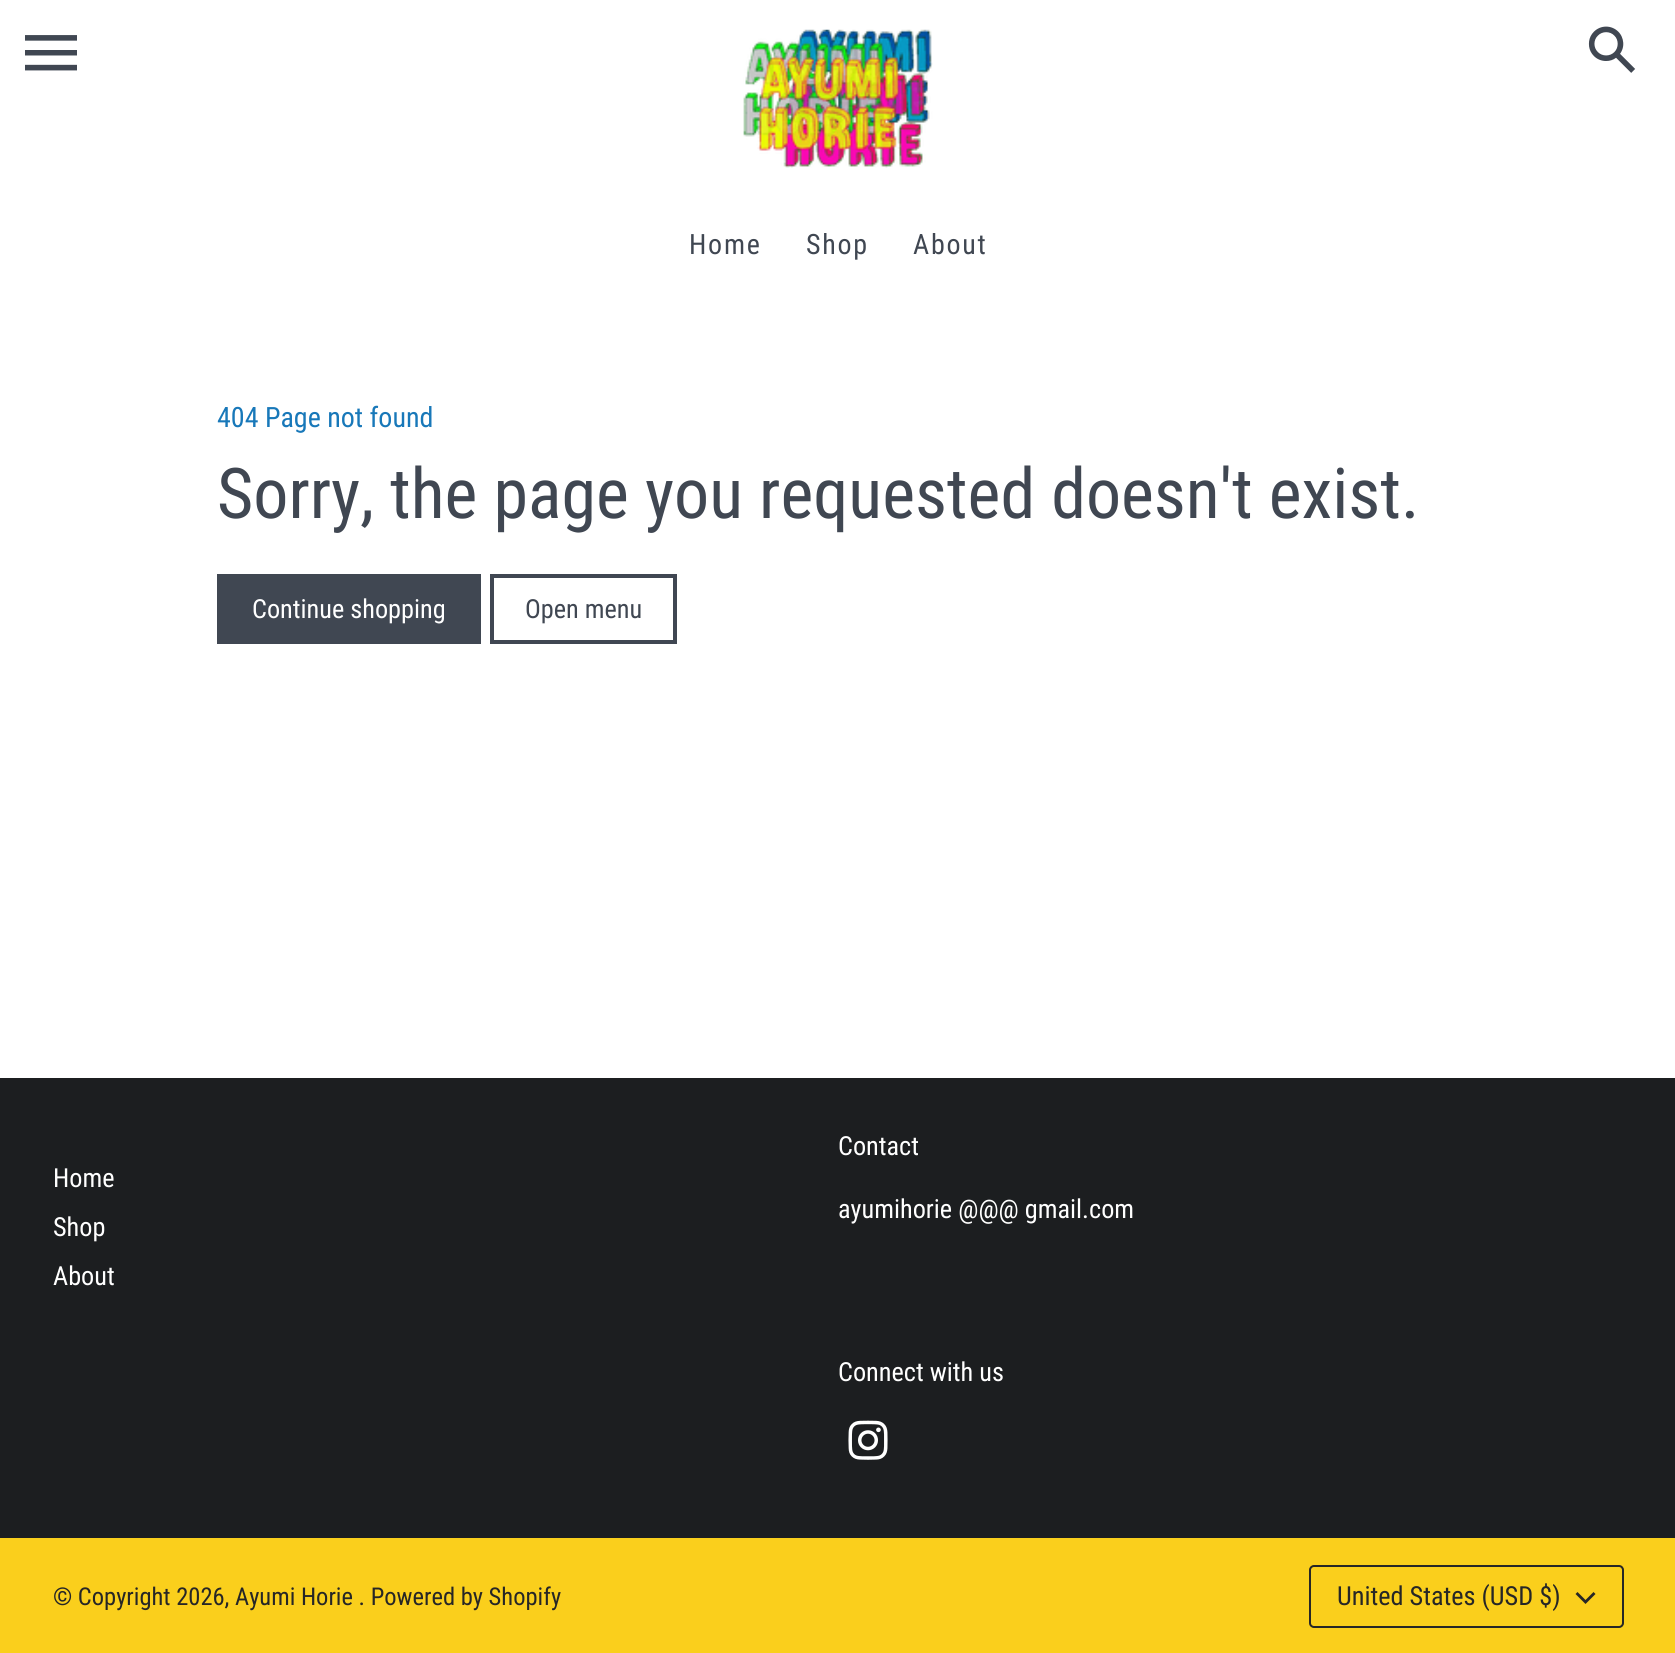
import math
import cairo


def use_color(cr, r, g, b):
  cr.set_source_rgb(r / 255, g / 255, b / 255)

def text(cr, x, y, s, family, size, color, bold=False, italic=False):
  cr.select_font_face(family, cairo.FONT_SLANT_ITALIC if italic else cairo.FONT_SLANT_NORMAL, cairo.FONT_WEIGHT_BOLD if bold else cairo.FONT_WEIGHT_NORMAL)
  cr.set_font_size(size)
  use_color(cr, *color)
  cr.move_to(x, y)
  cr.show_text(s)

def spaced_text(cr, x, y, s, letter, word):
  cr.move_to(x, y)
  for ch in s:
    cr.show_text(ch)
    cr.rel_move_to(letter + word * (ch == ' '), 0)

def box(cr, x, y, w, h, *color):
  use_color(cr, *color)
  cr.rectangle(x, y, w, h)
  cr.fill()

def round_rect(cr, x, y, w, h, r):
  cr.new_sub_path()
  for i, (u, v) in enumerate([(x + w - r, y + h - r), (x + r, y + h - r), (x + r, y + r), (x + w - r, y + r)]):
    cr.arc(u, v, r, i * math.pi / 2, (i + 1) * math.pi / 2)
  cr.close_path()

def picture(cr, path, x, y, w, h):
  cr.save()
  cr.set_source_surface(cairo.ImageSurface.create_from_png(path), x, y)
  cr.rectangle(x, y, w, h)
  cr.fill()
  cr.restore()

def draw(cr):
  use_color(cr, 255, 255, 255)
  cr.paint()
  picture(cr, "img_01.png", 743, 29, 190, 139)
  box(cr, 217, 574, 264, 70, 64, 71, 82)
  cr.rectangle(492, 576, 183, 66)
  cr.set_line_width(4)
  cr.stroke()
  box(cr, 0, 1078, 1675, 460, 28, 30, 32)
  picture(cr, "img_02.png", 848, 1420, 40, 40)
  box(cr, 0, 1538, 1675, 115, 250, 207, 28)
  round_rect(cr, 1310, 1566, 313, 61, 4)
  use_color(cr, 38, 38, 38)
  cr.set_line_width(2)
  cr.stroke()
  cr.new_path()
  cr.move_to(1593.5, 1592)
  cr.line_to(1585.5, 1600)
  cr.line_to(1577.5, 1592)
  cr.line_to(1575.5, 1594)
  cr.line_to(1585.5, 1604)
  cr.line_to(1595.5, 1594)
  cr.close_path()
  cr.fill()
  text(cr, 25, 82, "1", "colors", 52, (64, 71, 82))
  text(cr, 1586, 79, "2", "colors", 52, (64, 71, 82))
  cr.select_font_face("Roboto Condensed")
  cr.set_font_size(28)
  spaced_text(cr, 689, 254, "Home", 1.75, 0)
  spaced_text(cr, 806, 254, "Shop", 1.75, 0)
  spaced_text(cr, 913, 254, "About", 1.75, 0)
  text(cr, 217, 427, "404 Page not found", "Roboto Condensed", 28, (24, 120, 185))
  text(cr, 217, 518, "Sorry, the page you requested doesn't exist.", "Roboto Condensed", 70, (64, 71, 82))
  text(cr, 252, 618, "Continue shopping", "Roboto Condensed", 26.25, (255, 255, 255))
  text(cr, 525, 618, "Open menu", "Roboto Condensed", 26.25, (64, 71, 82))
  text(cr, 53, 1187, "Home", "Roboto Condensed", 26.25, (255, 255, 255))
  text(cr, 53, 1236, "Shop", "Roboto Condensed", 26.25, (255, 255, 255))
  text(cr, 53, 1285, "About", "Roboto Condensed", 26.25, (255, 255, 255))
  text(cr, 838, 1155, "Contact", "Roboto Condensed", 26.25, (255, 255, 255))
  text(cr, 838, 1218, "ayumihorie @@@ gmail.com", "Roboto Condensed", 26.25, (255, 255, 255))
  text(cr, 838, 1381, "Connect with us", "Roboto Condensed", 26.25, (255, 255, 255))
  text(cr, 53, 1605, "© Copyright 2026, Ayumi Horie . Powered by Shopify", "Roboto Condensed", 24.5, (38, 38, 38))
  text(cr, 1337, 1605, "United States (USD $)", "Roboto Condensed", 26.25, (38, 38, 38))


surface = cairo.ImageSurface(cairo.FORMAT_RGB24, 1675, 1653)
cr = cairo.Context(surface)
options = cairo.FontOptions()
options.set_hint_metrics(cairo.HINT_METRICS_OFF)
options.set_hint_style(cairo.HINT_STYLE_NONE)
cr.set_font_options(options)
cr.set_miter_limit(4)
draw(cr)
surface.write_to_png("out.png")
